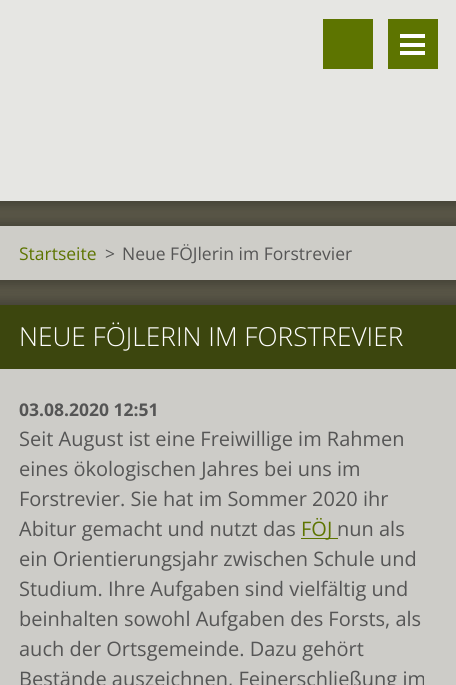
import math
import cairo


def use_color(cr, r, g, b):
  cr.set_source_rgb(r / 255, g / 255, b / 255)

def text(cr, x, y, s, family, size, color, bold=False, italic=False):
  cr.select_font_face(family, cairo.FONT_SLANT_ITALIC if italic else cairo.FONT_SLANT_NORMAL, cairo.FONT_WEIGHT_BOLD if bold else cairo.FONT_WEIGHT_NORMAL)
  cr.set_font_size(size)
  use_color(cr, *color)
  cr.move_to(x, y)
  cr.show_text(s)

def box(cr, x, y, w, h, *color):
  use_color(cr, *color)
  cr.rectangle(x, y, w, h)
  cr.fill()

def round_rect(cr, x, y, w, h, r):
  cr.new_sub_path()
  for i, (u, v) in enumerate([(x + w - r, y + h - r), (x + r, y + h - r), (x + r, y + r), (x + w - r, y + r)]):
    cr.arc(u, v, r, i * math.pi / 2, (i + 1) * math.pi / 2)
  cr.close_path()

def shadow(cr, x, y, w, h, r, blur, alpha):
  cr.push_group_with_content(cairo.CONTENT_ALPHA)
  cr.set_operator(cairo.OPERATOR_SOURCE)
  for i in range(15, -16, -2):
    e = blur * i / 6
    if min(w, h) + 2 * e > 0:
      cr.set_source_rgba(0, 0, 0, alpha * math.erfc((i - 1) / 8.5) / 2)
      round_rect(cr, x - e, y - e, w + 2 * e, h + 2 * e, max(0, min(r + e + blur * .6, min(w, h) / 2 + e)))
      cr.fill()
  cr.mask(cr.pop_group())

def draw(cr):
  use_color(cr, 89, 86, 71)
  cr.paint()
  use_color(cr, 0, 0, 0)
  shadow(cr, -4, -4, 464, 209, 0, 5.5, 0.25)
  box(cr, 0, 0, 456, 201, 230, 230, 227)
  box(cr, 323, 19, 50, 50, 93, 116, 0)
  box(cr, 388, 19, 50, 50, 93, 116, 0)
  box(cr, 400, 34, 25, 4, 255, 255, 255)
  box(cr, 400, 43, 25, 4, 255, 255, 255)
  box(cr, 400, 51, 25, 4, 255, 255, 255)
  cr.save()
  cr.set_fill_rule(cairo.FILL_RULE_EVEN_ODD)
  cr.new_path()
  cr.move_to(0, 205)
  cr.line_to(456, 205)
  cr.line_to(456, 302)
  cr.line_to(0, 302)
  cr.close_path()
  cr.move_to(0, 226)
  cr.line_to(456, 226)
  cr.line_to(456, 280)
  cr.line_to(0, 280)
  cr.close_path()
  cr.clip()
  use_color(cr, 0, 0, 0)
  shadow(cr, -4, 223, 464, 61, 0, 5.5, 0.25)
  cr.restore()
  cr.set_source_rgba(1, 1, 1, 0.7)
  cr.rectangle(0, 226, 456, 54)
  cr.fill()
  use_color(cr, 0, 0, 0)
  shadow(cr, -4, 301, 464, 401, 0, 5.5, 0.25)
  box(cr, 0, 305, 456, 64, 60, 70, 14)
  box(cr, 0, 369, 456, 316, 205, 204, 200)
  box(cr, 301, 538, 37, 1, 93, 116, 0)
  text(cr, 19, 260, "Startseite", "Open Sans", 17.5, (93, 116, 0))
  text(cr, 105, 260, ">", "Open Sans", 17.5, (85, 85, 85))
  text(cr, 122, 260, "Neue FÖJlerin im Forstrevier", "Open Sans", 17.5, (85, 85, 85))
  text(cr, 19, 346, "NEUE FÖJLERIN IM FORSTREVIER", "Open Sans Light", 26.25, (255, 255, 255))
  text(cr, 19, 416, "03.08.2020 12:51", "Open Sans", 17.5, (85, 85, 85), bold=True)
  text(cr, 19, 446, "Seit August ist eine Freiwillige im Rahmen", "Open Sans", 20, (85, 85, 85))
  text(cr, 19, 476, "eines ökologischen Jahres bei uns im", "Open Sans", 20, (85, 85, 85))
  text(cr, 19, 506, "Forstrevier. Sie hat im Sommer 2020 ihr", "Open Sans", 20, (85, 85, 85))
  text(cr, 19, 536, "Abitur gemacht und nutzt das", "Open Sans", 20, (85, 85, 85))
  text(cr, 301, 536, "FÖJ", "Open Sans", 20, (93, 116, 0))
  text(cr, 337, 536, "nun als", "Open Sans", 20, (85, 85, 85))
  text(cr, 19, 566, "ein Orientierungsjahr zwischen Schule und", "Open Sans", 20, (85, 85, 85))
  text(cr, 19, 596, "Studium. Ihre Aufgaben sind vielfältig und", "Open Sans", 20, (85, 85, 85))
  text(cr, 19, 626, "beinhalten sowohl Aufgaben des Forsts, als", "Open Sans", 20, (85, 85, 85))
  text(cr, 19, 656, "auch der Ortsgemeinde. Dazu gehört", "Open Sans", 20, (85, 85, 85))
  text(cr, 19, 686, "Bestände auszeichnen, Feinerschließung im", "Open Sans", 20, (85, 85, 85))


surface = cairo.ImageSurface(cairo.FORMAT_RGB24, 456, 685)
cr = cairo.Context(surface)
options = cairo.FontOptions()
options.set_hint_metrics(cairo.HINT_METRICS_OFF)
options.set_hint_style(cairo.HINT_STYLE_NONE)
cr.set_font_options(options)
cr.set_miter_limit(4)
draw(cr)
surface.write_to_png("out.png")
